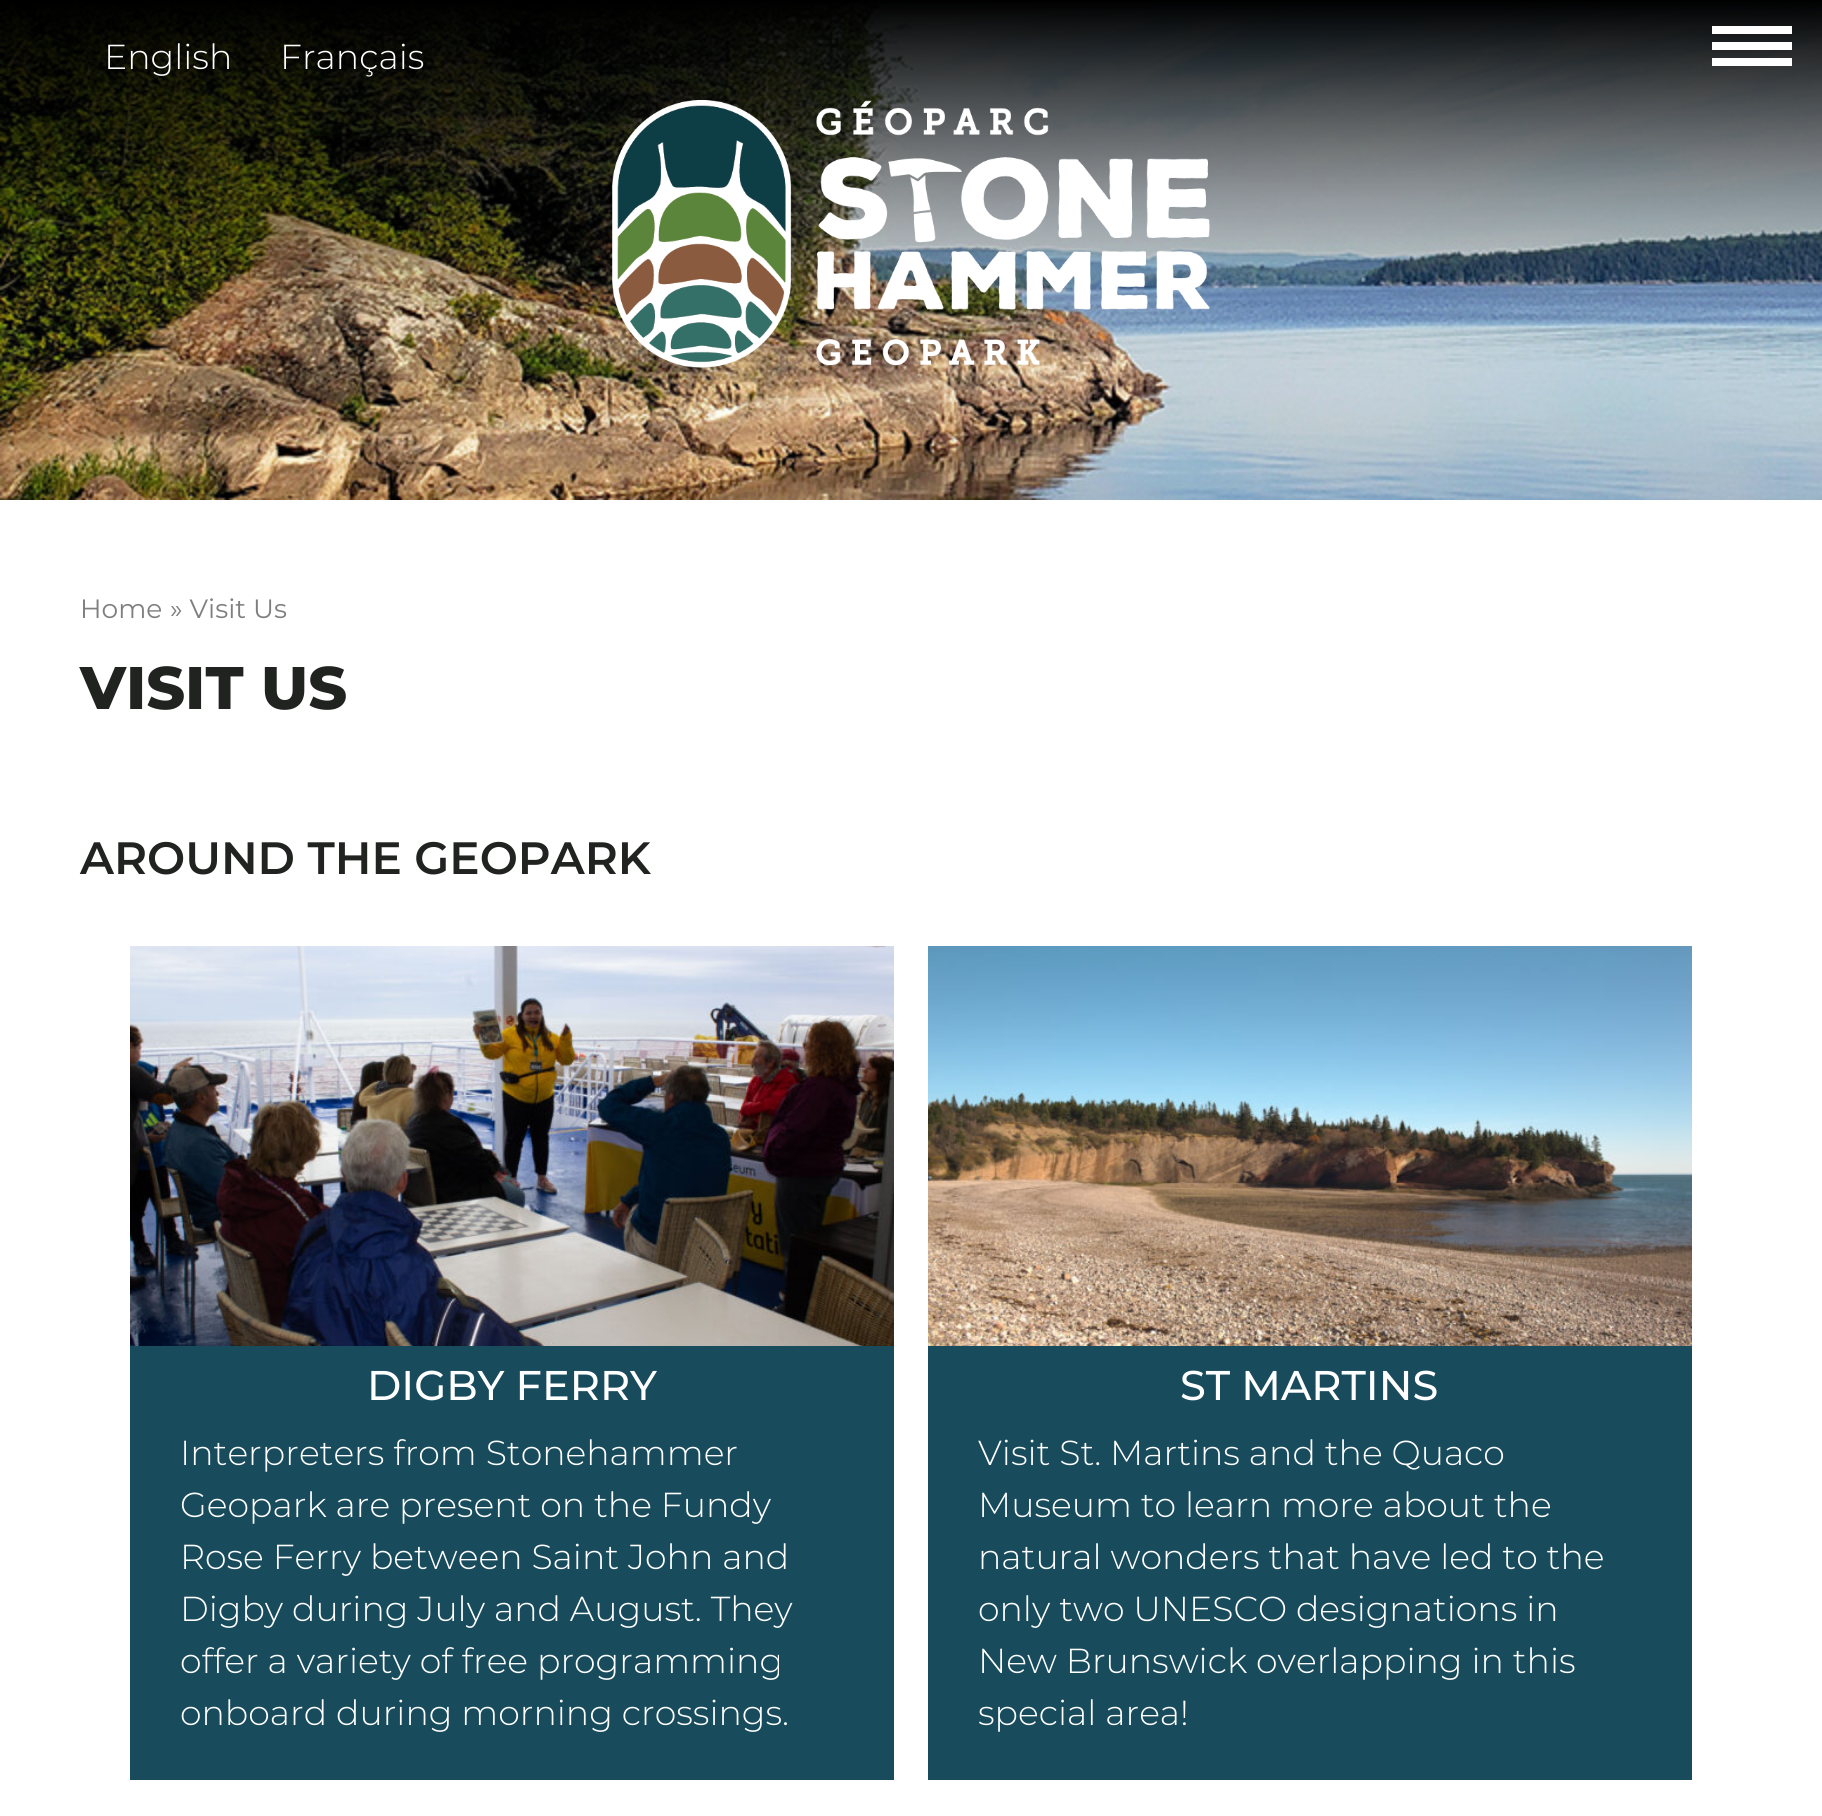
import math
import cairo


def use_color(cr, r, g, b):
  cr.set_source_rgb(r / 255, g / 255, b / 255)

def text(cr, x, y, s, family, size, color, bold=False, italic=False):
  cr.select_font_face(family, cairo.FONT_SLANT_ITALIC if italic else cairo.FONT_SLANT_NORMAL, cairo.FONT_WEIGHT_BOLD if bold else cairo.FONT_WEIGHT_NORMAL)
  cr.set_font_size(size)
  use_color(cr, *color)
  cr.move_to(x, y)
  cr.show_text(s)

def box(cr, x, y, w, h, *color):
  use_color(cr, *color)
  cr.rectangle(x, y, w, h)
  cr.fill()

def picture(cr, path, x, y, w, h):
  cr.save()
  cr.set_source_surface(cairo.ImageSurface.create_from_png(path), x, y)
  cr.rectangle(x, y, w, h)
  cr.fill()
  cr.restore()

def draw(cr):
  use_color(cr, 255, 255, 255)
  cr.paint()
  picture(cr, "img_01.png", 0, 0, 1822, 500)
  box(cr, 1712, 26, 80, 8, 255, 255, 255)
  box(cr, 1712, 42, 80, 8, 255, 255, 255)
  box(cr, 1712, 58, 80, 8, 255, 255, 255)
  picture(cr, "img_02.png", 612, 100, 598, 268)
  box(cr, 130, 1346, 764, 434, 24, 75, 92)
  picture(cr, "img_03.png", 130, 946, 764, 400)
  box(cr, 928, 1346, 764, 434, 24, 75, 92)
  picture(cr, "img_04.png", 928, 946, 764, 400)
  text(cr, 104, 69, "English", "Montserrat Light", 34.7, (255, 255, 255))
  text(cr, 280, 69, "Français", "Montserrat Light", 34.7, (255, 255, 255))
  text(cr, 80, 618, "Home", "Montserrat", 26.5, (127, 127, 127))
  text(cr, 170, 618, "» Visit Us", "Montserrat", 26.5, (127, 127, 127))
  text(cr, 80, 709, "VISIT US", "Montserrat ExtraBold", 60, (32, 35, 32))
  text(cr, 80, 874, "AROUND THE GEOPARK", "Montserrat SemiBold", 45.3, (32, 35, 32))
  text(cr, 367, 1400, "DIGBY FERRY", "Montserrat Medium", 41.5, (255, 255, 255))
  text(cr, 180, 1465, "Interpreters from Stonehammer", "Montserrat Light", 34.7, (255, 255, 255))
  text(cr, 180, 1517, "Geopark are present on the Fundy", "Montserrat Light", 34.7, (255, 255, 255))
  text(cr, 180, 1569, "Rose Ferry between Saint John and", "Montserrat Light", 34.7, (255, 255, 255))
  text(cr, 180, 1621, "Digby during July and August. They", "Montserrat Light", 34.7, (255, 255, 255))
  text(cr, 180, 1673, "offer a variety of free programming", "Montserrat Light", 34.7, (255, 255, 255))
  text(cr, 180, 1725, "onboard during morning crossings.", "Montserrat Light", 34.7, (255, 255, 255))
  text(cr, 1180, 1400, "ST MARTINS", "Montserrat Medium", 41.5, (255, 255, 255))
  text(cr, 978, 1465, "Visit St. Martins and the Quaco", "Montserrat Light", 34.7, (255, 255, 255))
  text(cr, 978, 1517, "Museum to learn more about the", "Montserrat Light", 34.7, (255, 255, 255))
  text(cr, 978, 1569, "natural wonders that have led to the", "Montserrat Light", 34.7, (255, 255, 255))
  text(cr, 978, 1621, "only two UNESCO designations in", "Montserrat Light", 34.7, (255, 255, 255))
  text(cr, 978, 1673, "New Brunswick overlapping in this", "Montserrat Light", 34.7, (255, 255, 255))
  text(cr, 978, 1725, "special area!", "Montserrat Light", 34.7, (255, 255, 255))


surface = cairo.ImageSurface(cairo.FORMAT_RGB24, 1822, 1816)
cr = cairo.Context(surface)
options = cairo.FontOptions()
options.set_hint_metrics(cairo.HINT_METRICS_OFF)
options.set_hint_style(cairo.HINT_STYLE_NONE)
cr.set_font_options(options)
cr.set_miter_limit(4)
draw(cr)
surface.write_to_png("out.png")
